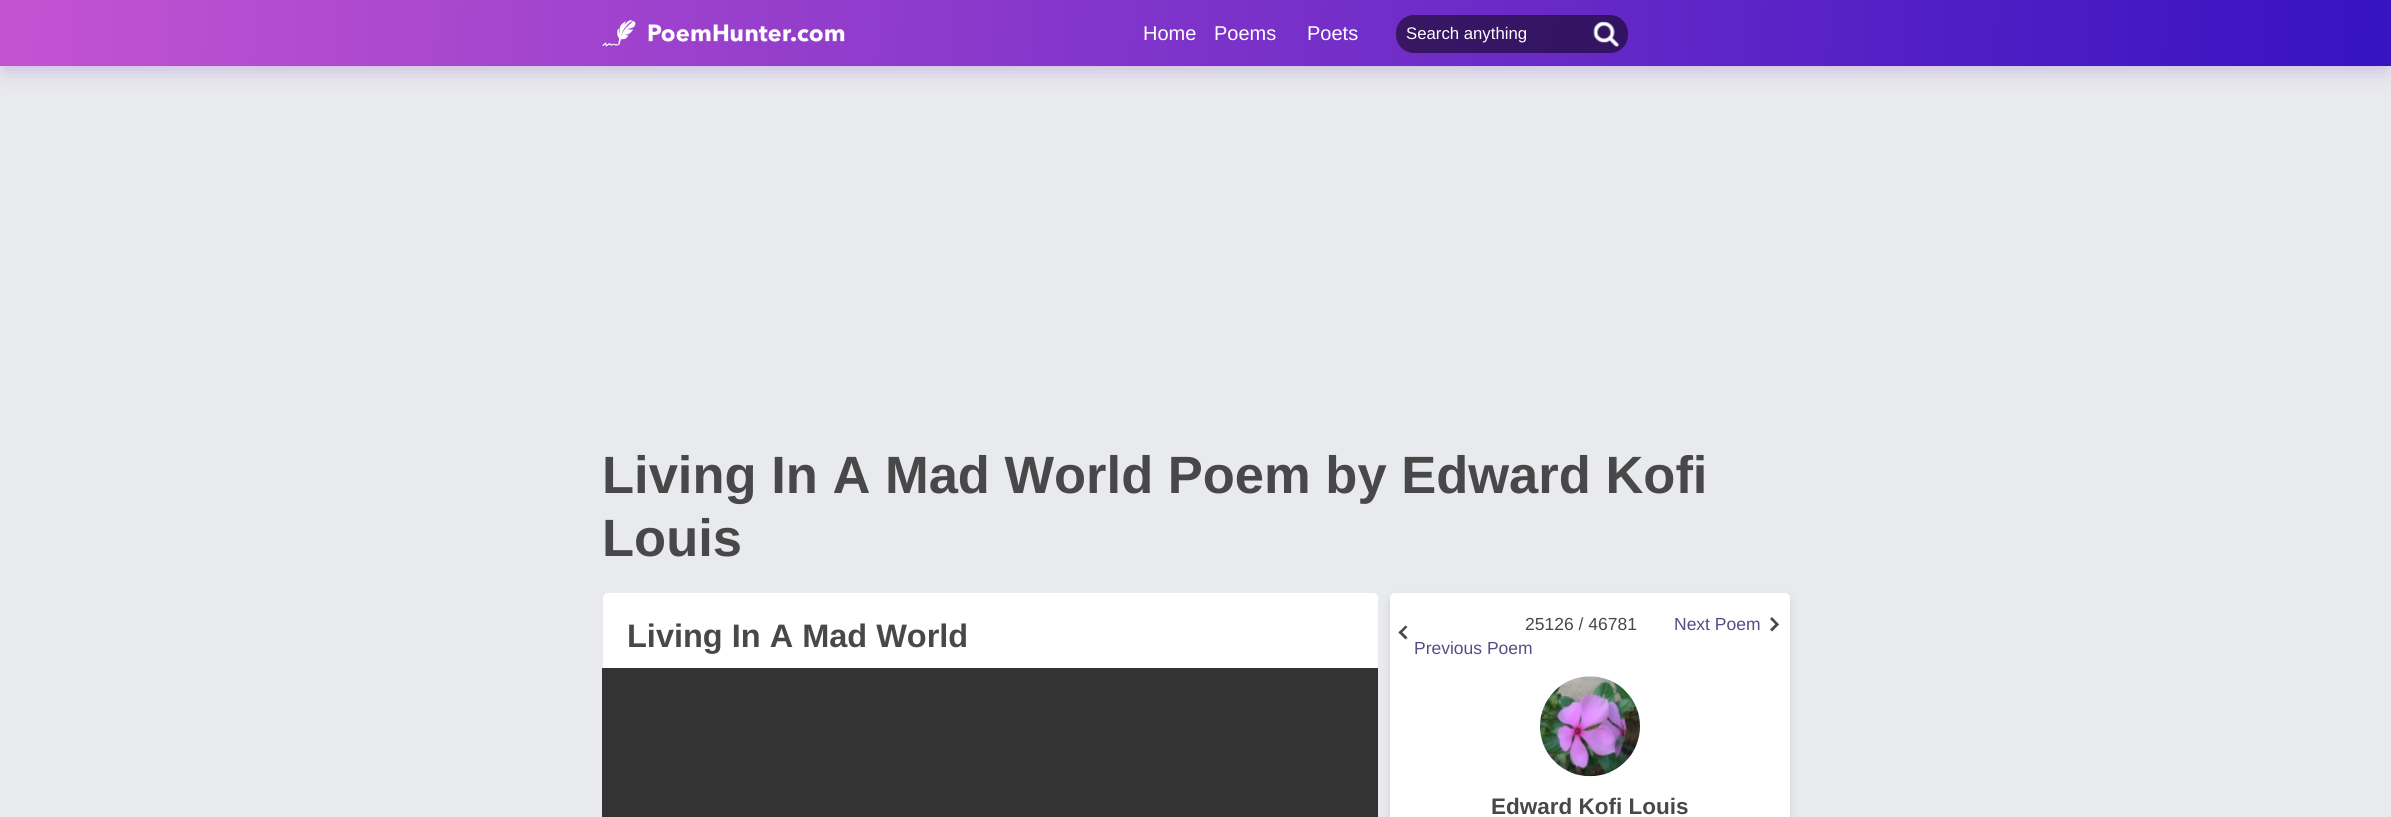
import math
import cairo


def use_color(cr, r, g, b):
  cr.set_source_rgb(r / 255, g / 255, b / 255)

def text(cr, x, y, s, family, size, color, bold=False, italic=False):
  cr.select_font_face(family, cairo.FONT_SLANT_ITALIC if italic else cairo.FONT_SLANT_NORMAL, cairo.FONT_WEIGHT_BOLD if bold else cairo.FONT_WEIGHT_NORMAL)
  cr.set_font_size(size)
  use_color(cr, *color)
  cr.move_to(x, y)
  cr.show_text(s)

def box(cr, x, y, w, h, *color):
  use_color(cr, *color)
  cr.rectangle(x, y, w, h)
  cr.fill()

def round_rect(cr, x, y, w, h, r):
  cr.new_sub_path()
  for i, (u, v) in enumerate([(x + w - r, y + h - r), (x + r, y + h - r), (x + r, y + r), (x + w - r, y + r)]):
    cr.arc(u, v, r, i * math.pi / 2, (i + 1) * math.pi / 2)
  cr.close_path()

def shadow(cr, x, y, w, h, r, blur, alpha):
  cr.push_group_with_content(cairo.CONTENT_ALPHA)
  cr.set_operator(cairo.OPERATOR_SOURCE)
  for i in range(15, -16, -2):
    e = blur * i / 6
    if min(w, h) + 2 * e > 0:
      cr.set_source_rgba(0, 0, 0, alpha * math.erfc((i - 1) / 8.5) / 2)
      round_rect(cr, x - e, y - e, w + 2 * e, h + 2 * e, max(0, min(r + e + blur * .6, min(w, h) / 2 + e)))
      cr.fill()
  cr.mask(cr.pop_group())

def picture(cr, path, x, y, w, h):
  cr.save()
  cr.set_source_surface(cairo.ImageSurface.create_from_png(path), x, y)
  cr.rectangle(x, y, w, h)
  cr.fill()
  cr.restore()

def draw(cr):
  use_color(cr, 232, 234, 237)
  cr.paint()
  use_color(cr, 99, 31, 182)
  shadow(cr, 5, 13, 2381, 56, 0, 11, 0.26)
  gradient = cairo.LinearGradient(-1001, -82, 2390, 96)
  gradient.add_color_stop_rgba(0, 1, 0.435, 0.847, 1)
  gradient.add_color_stop_rgba(0.99, 0.22, 0.075, 0.761, 1)
  cr.set_source(gradient)
  cr.rectangle(0, 0, 2391, 66)
  cr.fill()
  picture(cr, "img_01.png", 602, 20, 243, 27)
  cr.set_source_rgba(0, 0, 0, 0.5)
  round_rect(cr, 1396, 15, 232, 38, 18)
  cr.fill()
  picture(cr, "img_02.png", 1593, 21, 26, 26)
  cr.save()
  cr.rectangle(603, 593, 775, 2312)
  cr.clip()
  use_color(cr, 185, 185, 185)
  shadow(cr, 603, 598, 775, 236, 5, 4, 0.5)
  cr.restore()
  use_color(cr, 255, 255, 255)
  round_rect(cr, 603, 593, 775, 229, 5)
  cr.fill()
  box(cr, 602, 668, 776, 149, 51, 51, 51)
  use_color(cr, 185, 185, 185)
  shadow(cr, 1390, 598, 400, 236, 5, 4, 0.5)
  use_color(cr, 255, 255, 255)
  round_rect(cr, 1390, 593, 400, 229, 5)
  cr.fill()
  use_color(cr, 72, 72, 72)
  cr.new_path()
  cr.move_to(1770, 619)
  cr.line_to(1772, 617)
  cr.line_to(1779, 624.5)
  cr.line_to(1777, 626)
  cr.close_path()
  cr.fill()
  cr.new_path()
  cr.move_to(1770, 629.5)
  cr.line_to(1777, 622.5)
  cr.line_to(1779, 624.5)
  cr.line_to(1772, 631.5)
  cr.close_path()
  cr.fill()
  cr.new_path()
  cr.move_to(1407.5, 637.5)
  cr.line_to(1405.5, 639.5)
  cr.line_to(1398.5, 632.5)
  cr.line_to(1400.5, 630.5)
  cr.close_path()
  cr.fill()
  cr.new_path()
  cr.move_to(1407.5, 627)
  cr.line_to(1400.5, 634)
  cr.line_to(1398.5, 632.5)
  cr.line_to(1405.5, 625.5)
  cr.close_path()
  cr.fill()
  picture(cr, "img_03.png", 1540, 676, 100, 101)
  text(cr, 1143, 40, "Home", "Liberation Sans", 20, (255, 255, 255))
  text(cr, 1214, 40, "Poems", "Liberation Sans", 20, (255, 255, 255))
  text(cr, 1307, 40, "Poets", "Liberation Sans", 20, (255, 255, 255))
  text(cr, 1406, 39, "Search anything", "Liberation Sans", 16.75, (255, 255, 255))
  text(cr, 602, 493, "Living In A Mad World Poem by Edward Kofi", "Liberation Sans", 52.5, (72, 72, 72), bold=True)
  text(cr, 602, 556, "Louis", "Liberation Sans", 52.5, (72, 72, 72), bold=True)
  text(cr, 627, 647, "Living In A Mad World", "Liberation Sans", 32.5, (72, 72, 72), bold=True)
  text(cr, 1525, 630, "25126 / 46781", "Liberation Sans", 17.5, (72, 72, 72))
  text(cr, 1674, 630, "Next Poem", "Liberation Sans", 17.5, (90, 75, 132))
  text(cr, 1414, 654, "Previous Poem", "Liberation Sans", 17.5, (90, 75, 132))
  text(cr, 1491, 814, "Edward Kofi Louis", "Liberation Sans", 22.5, (72, 72, 72), bold=True)


surface = cairo.ImageSurface(cairo.FORMAT_RGB24, 2391, 817)
cr = cairo.Context(surface)
options = cairo.FontOptions()
options.set_hint_metrics(cairo.HINT_METRICS_OFF)
options.set_hint_style(cairo.HINT_STYLE_NONE)
cr.set_font_options(options)
cr.set_miter_limit(4)
draw(cr)
surface.write_to_png("out.png")
